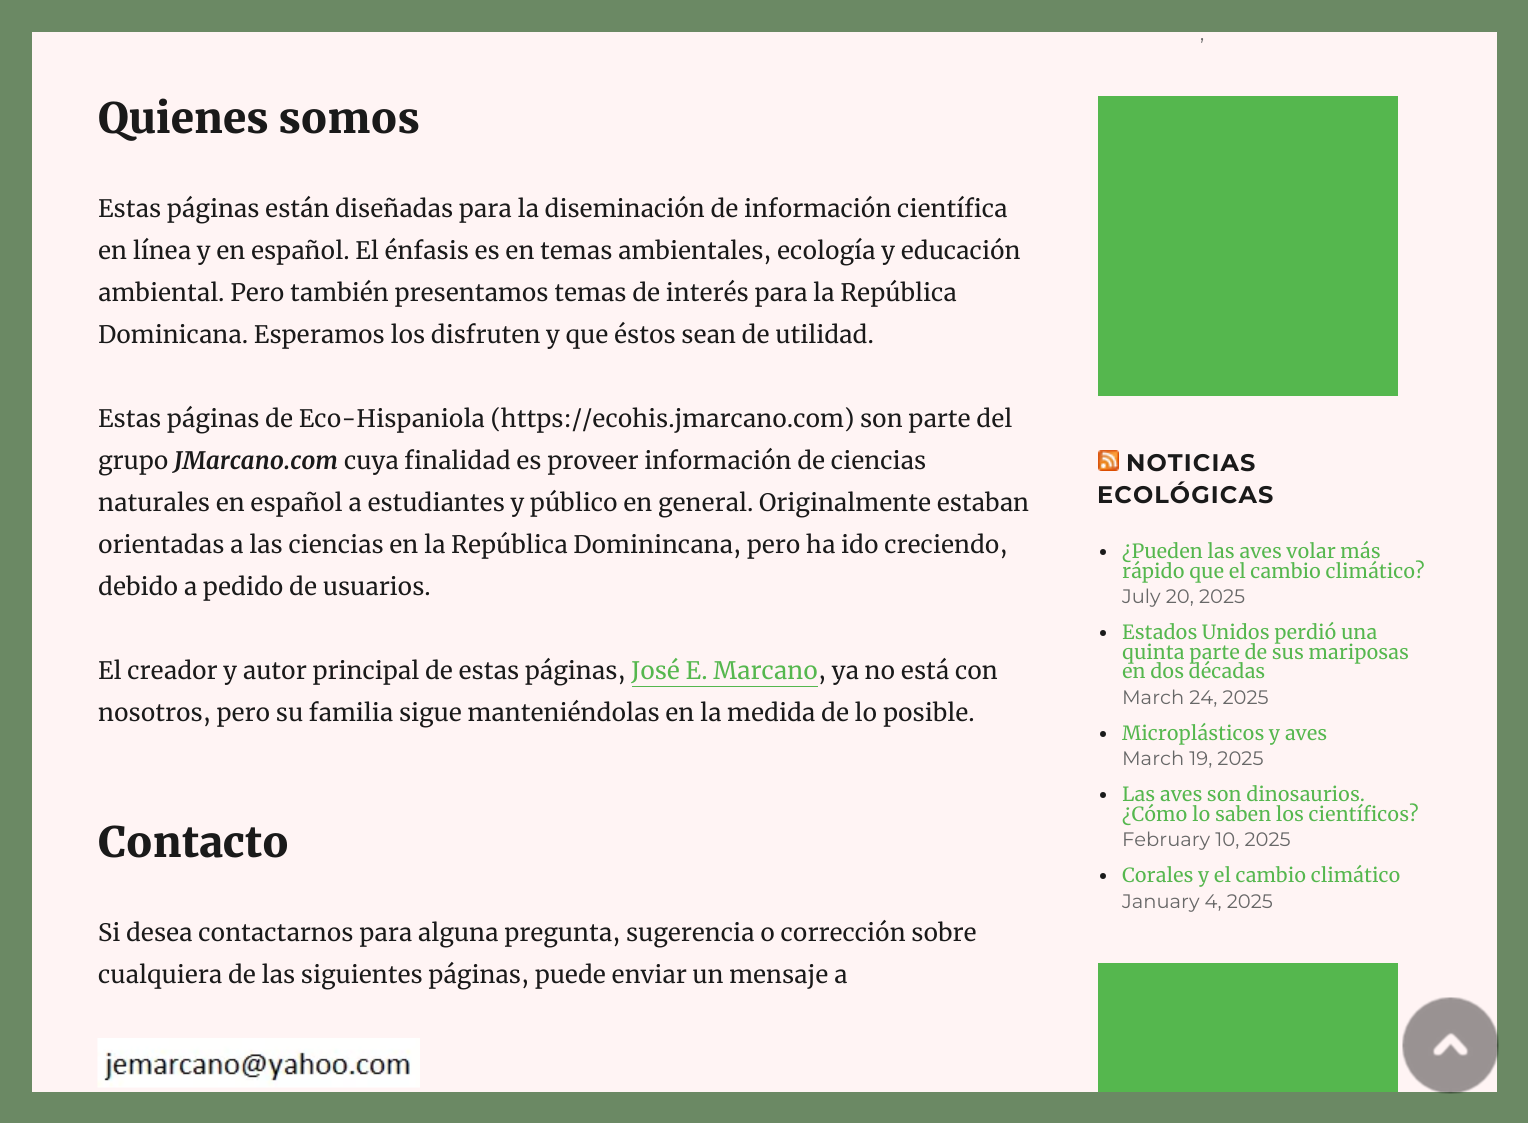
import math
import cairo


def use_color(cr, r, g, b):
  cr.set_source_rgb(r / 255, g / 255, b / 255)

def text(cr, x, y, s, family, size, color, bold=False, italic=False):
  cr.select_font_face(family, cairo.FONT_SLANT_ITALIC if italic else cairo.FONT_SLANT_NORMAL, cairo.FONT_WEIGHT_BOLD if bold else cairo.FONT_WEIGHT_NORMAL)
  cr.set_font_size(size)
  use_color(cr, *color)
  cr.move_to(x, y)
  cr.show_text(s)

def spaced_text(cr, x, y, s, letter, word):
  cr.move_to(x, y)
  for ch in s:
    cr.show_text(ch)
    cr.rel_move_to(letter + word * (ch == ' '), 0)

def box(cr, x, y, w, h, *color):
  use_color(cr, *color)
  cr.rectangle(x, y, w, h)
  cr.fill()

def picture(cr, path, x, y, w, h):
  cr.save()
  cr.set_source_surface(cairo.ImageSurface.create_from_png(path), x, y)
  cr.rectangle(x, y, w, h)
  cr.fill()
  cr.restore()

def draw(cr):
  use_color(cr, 107, 137, 100)
  cr.paint()
  box(cr, 32, 32, 1465, 1060, 255, 244, 244)
  use_color(cr, 85, 183, 78)
  cr.new_path()
  cr.move_to(632, 686)
  cr.line_to(632, 687)
  cr.line_to(818, 687)
  cr.line_to(818, 657)
  cr.line_to(818, 686)
  cr.close_path()
  cr.fill()
  picture(cr, "img_01.png", 97, 1038, 323, 50)
  box(cr, 1098, 96, 300, 300, 85, 183, 78)
  picture(cr, "img_02.png", 1098, 450, 21, 21)
  use_color(cr, 26, 26, 26)
  cr.arc(1103, 552, 3, 0, 2 * math.pi)
  cr.fill()
  cr.arc(1103, 633, 3, 0, 2 * math.pi)
  cr.fill()
  cr.arc(1103, 734, 3, 0, 2 * math.pi)
  cr.fill()
  cr.arc(1103, 795, 3, 0, 2 * math.pi)
  cr.fill()
  cr.arc(1103, 876, 3, 0, 2 * math.pi)
  cr.fill()
  box(cr, 1098, 963, 300, 129, 85, 183, 78)
  picture(cr, "img_03.png", 1402, 997, 97, 97)
  text(cr, 98, 133, "Quienes somos", "Merriweather Black", 42, (26, 26, 26))
  text(cr, 98, 217, "Estas páginas están diseñadas para la diseminación de información científica", "Merriweather", 24, (26, 26, 26))
  text(cr, 98, 259, "en línea y en español. El énfasis es en temas ambientales, ecología y educación", "Merriweather", 24, (26, 26, 26))
  text(cr, 98, 301, "ambiental. Pero también presentamos temas de interés para la República", "Merriweather", 24, (26, 26, 26))
  text(cr, 98, 343, "Dominicana. Esperamos los disfruten y que éstos sean de utilidad.", "Merriweather", 24, (26, 26, 26))
  text(cr, 98, 427, "Estas páginas de Eco-Hispaniola (https://ecohis.jmarcano.com) son parte del", "Merriweather", 24, (26, 26, 26))
  text(cr, 98, 469, "grupo", "Merriweather", 24, (26, 26, 26))
  text(cr, 174, 469, "JMarcano.com", "Merriweather", 24, (26, 26, 26), bold=True, italic=True)
  text(cr, 344, 469, "cuya finalidad es proveer información de ciencias", "Merriweather", 24, (26, 26, 26))
  text(cr, 98, 511, "naturales en español a estudiantes y público en general. Originalmente estaban", "Merriweather", 24, (26, 26, 26))
  text(cr, 98, 553, "orientadas a las ciencias en la República Dominincana, pero ha ido creciendo,", "Merriweather", 24, (26, 26, 26))
  text(cr, 98, 595, "debido a pedido de usuarios.", "Merriweather", 24, (26, 26, 26))
  text(cr, 98, 679, "El creador y autor principal de estas páginas,", "Merriweather", 24, (26, 26, 26))
  text(cr, 631, 679, "José E. Marcano", "Merriweather", 24, (85, 183, 78))
  text(cr, 818, 679, ", ya no está con", "Merriweather", 24, (26, 26, 26))
  text(cr, 98, 721, "nosotros, pero su familia sigue manteniéndolas en la medida de lo posible.", "Merriweather", 24, (26, 26, 26))
  text(cr, 98, 857, "Contacto", "Merriweather Black", 42, (26, 26, 26))
  text(cr, 98, 941, "Si desea contactarnos para alguna pregunta, sugerencia o corrección sobre", "Merriweather", 24, (26, 26, 26))
  text(cr, 98, 983, "cualquiera de las siguientes páginas, puede enviar un mensaje a", "Merriweather", 24, (26, 26, 26))
  text(cr, 1200, 40, ",", "Montserrat", 19.5, (104, 104, 104))
  cr.select_font_face("Montserrat", cairo.FONT_SLANT_NORMAL, cairo.FONT_WEIGHT_BOLD)
  cr.set_font_size(24)
  use_color(cr, 26, 26, 26)
  spaced_text(cr, 1126, 471, "NOTICIAS", 1.1, 0)
  spaced_text(cr, 1097, 503, "ECOLÓGICAS", 1.1, 0)
  text(cr, 1122, 558, "¿Pueden las aves volar más", "Merriweather", 19.5, (85, 183, 78))
  text(cr, 1122, 578, "rápido que el cambio climático?", "Merriweather", 19.5, (85, 183, 78))
  text(cr, 1122, 603, "July 20, 2025", "Montserrat", 19.5, (104, 104, 104))
  text(cr, 1122, 639, "Estados Unidos perdió una", "Merriweather", 19.5, (85, 183, 78))
  text(cr, 1122, 659, "quinta parte de sus mariposas", "Merriweather", 19.5, (85, 183, 78))
  text(cr, 1122, 678, "en dos décadas", "Merriweather", 19.5, (85, 183, 78))
  text(cr, 1122, 704, "March 24, 2025", "Montserrat", 19.5, (104, 104, 104))
  text(cr, 1122, 740, "Microplásticos y aves", "Merriweather", 19.5, (85, 183, 78))
  text(cr, 1122, 765, "March 19, 2025", "Montserrat", 19.5, (104, 104, 104))
  text(cr, 1122, 801, "Las aves son dinosaurios.", "Merriweather", 19.5, (85, 183, 78))
  text(cr, 1122, 821, "¿Cómo lo saben los científicos?", "Merriweather", 19.5, (85, 183, 78))
  text(cr, 1122, 846, "February 10, 2025", "Montserrat", 19.5, (104, 104, 104))
  text(cr, 1122, 882, "Corales y el cambio climático", "Merriweather", 19.5, (85, 183, 78))
  text(cr, 1122, 908, "January 4, 2025", "Montserrat", 19.5, (104, 104, 104))


surface = cairo.ImageSurface(cairo.FORMAT_RGB24, 1528, 1123)
cr = cairo.Context(surface)
options = cairo.FontOptions()
options.set_hint_metrics(cairo.HINT_METRICS_OFF)
options.set_hint_style(cairo.HINT_STYLE_NONE)
cr.set_font_options(options)
cr.set_miter_limit(4)
draw(cr)
surface.write_to_png("out.png")
